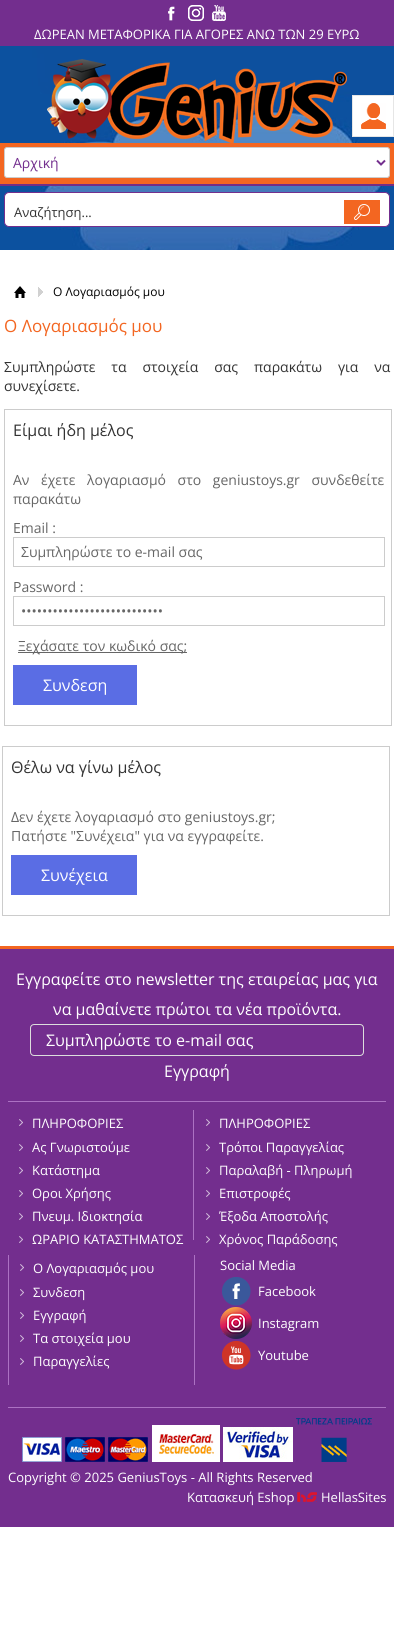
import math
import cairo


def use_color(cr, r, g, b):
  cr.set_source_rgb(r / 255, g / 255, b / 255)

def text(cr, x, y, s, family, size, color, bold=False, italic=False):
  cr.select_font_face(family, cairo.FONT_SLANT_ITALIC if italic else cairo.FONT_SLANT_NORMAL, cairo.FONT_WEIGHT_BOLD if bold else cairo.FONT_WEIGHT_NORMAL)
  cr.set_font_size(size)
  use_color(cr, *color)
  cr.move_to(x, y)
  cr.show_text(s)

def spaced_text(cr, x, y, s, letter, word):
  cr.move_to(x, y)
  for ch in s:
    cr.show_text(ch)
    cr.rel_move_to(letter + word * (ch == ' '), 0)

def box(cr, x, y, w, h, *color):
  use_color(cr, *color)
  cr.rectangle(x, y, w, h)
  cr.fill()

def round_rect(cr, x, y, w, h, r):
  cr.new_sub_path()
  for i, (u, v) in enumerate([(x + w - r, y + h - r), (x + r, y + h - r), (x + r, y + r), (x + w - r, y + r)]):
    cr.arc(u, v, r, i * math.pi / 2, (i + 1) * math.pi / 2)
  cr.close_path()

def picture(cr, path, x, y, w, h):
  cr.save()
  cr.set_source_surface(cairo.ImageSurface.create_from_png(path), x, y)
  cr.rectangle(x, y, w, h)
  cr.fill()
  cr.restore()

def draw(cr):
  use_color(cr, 255, 255, 255)
  cr.paint()
  box(cr, 0, 0, 394, 46, 115, 46, 142)
  picture(cr, "img_01.png", 168, 6, 7, 15)
  picture(cr, "img_02.png", 188, 5, 16, 16)
  picture(cr, "img_03.png", 212, 5, 14, 16)
  picture(cr, "img_04.png", 0, 46, 394, 204)
  box(cr, 0, 143, 394, 41, 243, 102, 33)
  box(cr, 0, 184, 394, 2, 117, 44, 133)
  use_color(cr, 255, 255, 255)
  round_rect(cr, 4.5, 147.5, 385, 30, 2.5)
  cr.fill_preserve()
  use_color(cr, 204, 204, 204)
  cr.set_line_width(1)
  cr.stroke()
  cr.new_path()
  cr.move_to(377, 160.5)
  cr.line_to(381, 164.5)
  cr.line_to(385, 160.5)
  use_color(cr, 115, 46, 142)
  cr.set_line_width(2)
  cr.stroke()
  picture(cr, "img_05.png", 47, 59, 300, 84)
  box(cr, 353, 96, 40, 40, 255, 255, 255)
  picture(cr, "img_06.png", 361, 103, 25, 26)
  cr.rectangle(352.5, 95.5, 41, 41)
  use_color(cr, 230, 230, 230)
  cr.set_line_width(1)
  cr.stroke()
  use_color(cr, 255, 255, 255)
  round_rect(cr, 4.5, 192.5, 385, 34, 4.5)
  cr.fill_preserve()
  use_color(cr, 115, 46, 142)
  cr.stroke()
  box(cr, 344, 200, 36, 24, 243, 102, 33)
  picture(cr, "img_07.png", 354, 204, 16, 16)
  picture(cr, "img_08.png", 14, 286, 12, 12)
  picture(cr, "img_09.png", 38, 287, 5, 10)
  cr.rectangle(4.5, 409.5, 387, 316)
  use_color(cr, 204, 204, 204)
  cr.stroke()
  cr.rectangle(13.5, 537.5, 371, 29)
  cr.stroke()
  cr.rectangle(13.5, 596.5, 371, 29)
  cr.stroke()
  box(cr, 18, 652, 169, 1, 102, 102, 102)
  box(cr, 13, 665, 124, 40, 90, 109, 228)
  cr.rectangle(2.5, 746.5, 387, 169)
  use_color(cr, 204, 204, 204)
  cr.stroke()
  box(cr, 11, 855, 126, 40, 90, 109, 228)
  box(cr, 0, 949, 394, 578, 115, 46, 142)
  box(cr, 0, 946, 394, 3, 243, 102, 33)
  box(cr, 8, 1101, 378, 1, 172, 113, 195)
  round_rect(cr, 30.5, 1024.5, 333, 31, 3.5)
  use_color(cr, 221, 221, 221)
  cr.stroke()
  picture(cr, "img_10.png", 19, 1119, 4, 7)
  picture(cr, "img_10.png", 19, 1144, 4, 7)
  picture(cr, "img_10.png", 19, 1167, 4, 7)
  picture(cr, "img_10.png", 19, 1190, 4, 7)
  picture(cr, "img_10.png", 19, 1213, 4, 7)
  picture(cr, "img_10.png", 19, 1236, 4, 7)
  box(cr, 193, 1110, 1, 130, 172, 113, 195)
  picture(cr, "img_10.png", 206, 1119, 4, 7)
  picture(cr, "img_10.png", 206, 1144, 4, 7)
  picture(cr, "img_10.png", 206, 1167, 4, 7)
  picture(cr, "img_10.png", 206, 1190, 4, 7)
  picture(cr, "img_10.png", 206, 1213, 4, 7)
  picture(cr, "img_10.png", 206, 1236, 4, 7)
  box(cr, 8, 1255, 1, 130, 172, 113, 195)
  picture(cr, "img_10.png", 20, 1264, 4, 7)
  picture(cr, "img_10.png", 20, 1289, 4, 7)
  picture(cr, "img_10.png", 20, 1312, 4, 7)
  picture(cr, "img_10.png", 20, 1335, 4, 7)
  picture(cr, "img_10.png", 20, 1358, 4, 7)
  box(cr, 194, 1255, 1, 130, 172, 113, 195)
  picture(cr, "img_11.png", 222, 1277, 29, 29)
  picture(cr, "img_12.png", 220, 1307, 32, 32)
  picture(cr, "img_13.png", 221, 1340, 30, 30)
  box(cr, 8, 1407, 378, 1, 172, 113, 195)
  picture(cr, "img_14.png", 22, 1437, 40, 25)
  picture(cr, "img_15.png", 65, 1437, 40, 25)
  picture(cr, "img_16.png", 108, 1437, 40, 25)
  picture(cr, "img_17.png", 152, 1425, 68, 37)
  picture(cr, "img_18.png", 223, 1427, 70, 35)
  picture(cr, "img_19.png", 296, 1418, 76, 44)
  picture(cr, "img_20.png", 297, 1492, 20, 10)
  text(cr, 34, 39, "ΔΩΡΕΑΝ ΜΕΤΑΦΟΡΙΚΑ ΓΙΑ ΑΓΟΡΕΣ ΑΝΩ ΤΩΝ 29 ΕΥΡΩ", "Open Sans", 13, (255, 255, 255))
  text(cr, 13, 168, "Αρχική", "Open Sans", 14, (115, 46, 142))
  text(cr, 14, 217, "Αναζήτηση...", "Open Sans", 13, (51, 51, 51))
  text(cr, 53, 296, "Ο Λογαριασμός μου", "Open Sans", 12, (0, 0, 0))
  text(cr, 4, 332, "Ο Λογαριασμός μου", "Open Sans", 17, (243, 102, 33))
  cr.set_font_size(14)
  use_color(cr, 51, 51, 51)
  spaced_text(cr, 4, 372, "Συμπληρώστε τα στοιχεία σας παρακάτω για να", 0, 12.25)
  text(cr, 4, 391, "συνεχίσετε.", "Open Sans", 14, (51, 51, 51))
  text(cr, 13, 436, "Είμαι ήδη μέλος", "Open Sans", 16, (51, 51, 51))
  cr.set_font_size(14)
  use_color(cr, 102, 102, 102)
  spaced_text(cr, 13, 485, "Αν έχετε λογαριασμό στο geniustoys.gr συνδεθείτε", 0, 8)
  text(cr, 13, 504, "παρακάτω", "Open Sans", 14, (102, 102, 102))
  text(cr, 13, 533, "Email :", "Open Sans", 14, (102, 102, 102))
  text(cr, 21, 557, "Συμπληρώστε το e-mail σας", "Open Sans", 14, (102, 102, 102))
  text(cr, 13, 592, "Password :", "Open Sans", 14, (102, 102, 102))
  text(cr, 21, 616, "•••••••••••••••••••••••••••", "Open Sans", 14, (102, 102, 102))
  text(cr, 18, 651, "Ξεχάσατε τον κωδικό σας;", "Open Sans", 14, (102, 102, 102))
  text(cr, 43, 691, "Συνδεση", "Open Sans", 16, (255, 255, 255))
  text(cr, 11, 773, "Θέλω να γίνω μέλος", "Open Sans", 16, (51, 51, 51))
  text(cr, 11, 822, "Δεν έχετε λογαριασμό στο geniustoys.gr;", "Open Sans", 14, (102, 102, 102))
  text(cr, 11, 841, "Πατήστε \"Συνέχεια\" για να εγγραφείτε.", "Open Sans", 14, (102, 102, 102))
  text(cr, 41, 881, "Συνέχεια", "Open Sans", 16, (255, 255, 255))
  text(cr, 16, 985, "Εγγραφείτε στο newsletter της εταιρείας μας για", "Open Sans", 16, (255, 255, 255))
  text(cr, 53, 1015, "να μαθαίνετε πρώτοι τα νέα προϊόντα.", "Open Sans", 16, (255, 255, 255))
  text(cr, 46, 1046, "Συμπληρώστε το e-mail σας", "Open Sans", 16, (255, 255, 255))
  text(cr, 164, 1077, "Εγγραφή", "Open Sans", 16, (255, 255, 255))
  text(cr, 32, 1128, "ΠΛΗΡΟΦΟΡΙΕΣ", "Open Sans", 13, (255, 255, 255))
  text(cr, 32, 1152, "Ας Γνωριστούμε", "Open Sans", 13, (255, 255, 255))
  text(cr, 32, 1175, "Κατάστημα", "Open Sans", 13, (255, 255, 255))
  text(cr, 32, 1198, "Οροι Χρήσης", "Open Sans", 13, (255, 255, 255))
  text(cr, 32, 1221, "Πνευμ. Ιδιοκτησία", "Open Sans", 13, (255, 255, 255))
  text(cr, 32, 1244, "ΩΡΑΡΙΟ ΚΑΤΑΣΤΗΜΑΤΟΣ", "Open Sans", 13, (255, 255, 255))
  text(cr, 219, 1128, "ΠΛΗΡΟΦΟΡΙΕΣ", "Open Sans", 13, (255, 255, 255))
  text(cr, 219, 1152, "Τρόποι Παραγγελίας", "Open Sans", 13, (255, 255, 255))
  text(cr, 219, 1175, "Παραλαβή - Πληρωμή", "Open Sans", 13, (255, 255, 255))
  text(cr, 219, 1198, "Επιστροφές", "Open Sans", 13, (255, 255, 255))
  text(cr, 219, 1221, "Έξοδα Αποστολής", "Open Sans", 13, (255, 255, 255))
  text(cr, 219, 1244, "Χρόνος Παράδοσης", "Open Sans", 13, (255, 255, 255))
  text(cr, 33, 1273, "Ο Λογαριασμός μου", "Open Sans", 13, (255, 255, 255))
  text(cr, 33, 1297, "Συνδεση", "Open Sans", 13, (255, 255, 255))
  text(cr, 33, 1320, "Εγγραφή", "Open Sans", 13, (255, 255, 255))
  text(cr, 33, 1343, "Τα στοιχεία μου", "Open Sans", 13, (255, 255, 255))
  text(cr, 33, 1366, "Παραγγελίες", "Open Sans", 13, (255, 255, 255))
  text(cr, 220, 1270, "Social Media", "Open Sans", 13, (255, 255, 255))
  text(cr, 258, 1296, "Facebook", "Open Sans", 13, (255, 255, 255))
  text(cr, 258, 1328, "Instagram", "Open Sans", 13, (255, 255, 255))
  text(cr, 258, 1360, "Youtube", "Open Sans", 13, (255, 255, 255))
  text(cr, 8, 1482, "Copyright © 2025 GeniusToys - All Rights Reserved", "Open Sans", 13, (255, 255, 255))
  text(cr, 187, 1502, "Κατασκευή Eshop", "Open Sans", 13, (255, 255, 255))
  text(cr, 321, 1502, "HellasSites", "Open Sans", 13, (255, 255, 255))


surface = cairo.ImageSurface(cairo.FORMAT_RGB24, 394, 1629)
cr = cairo.Context(surface)
options = cairo.FontOptions()
options.set_hint_metrics(cairo.HINT_METRICS_OFF)
options.set_hint_style(cairo.HINT_STYLE_NONE)
cr.set_font_options(options)
cr.set_miter_limit(4)
draw(cr)
surface.write_to_png("out.png")
